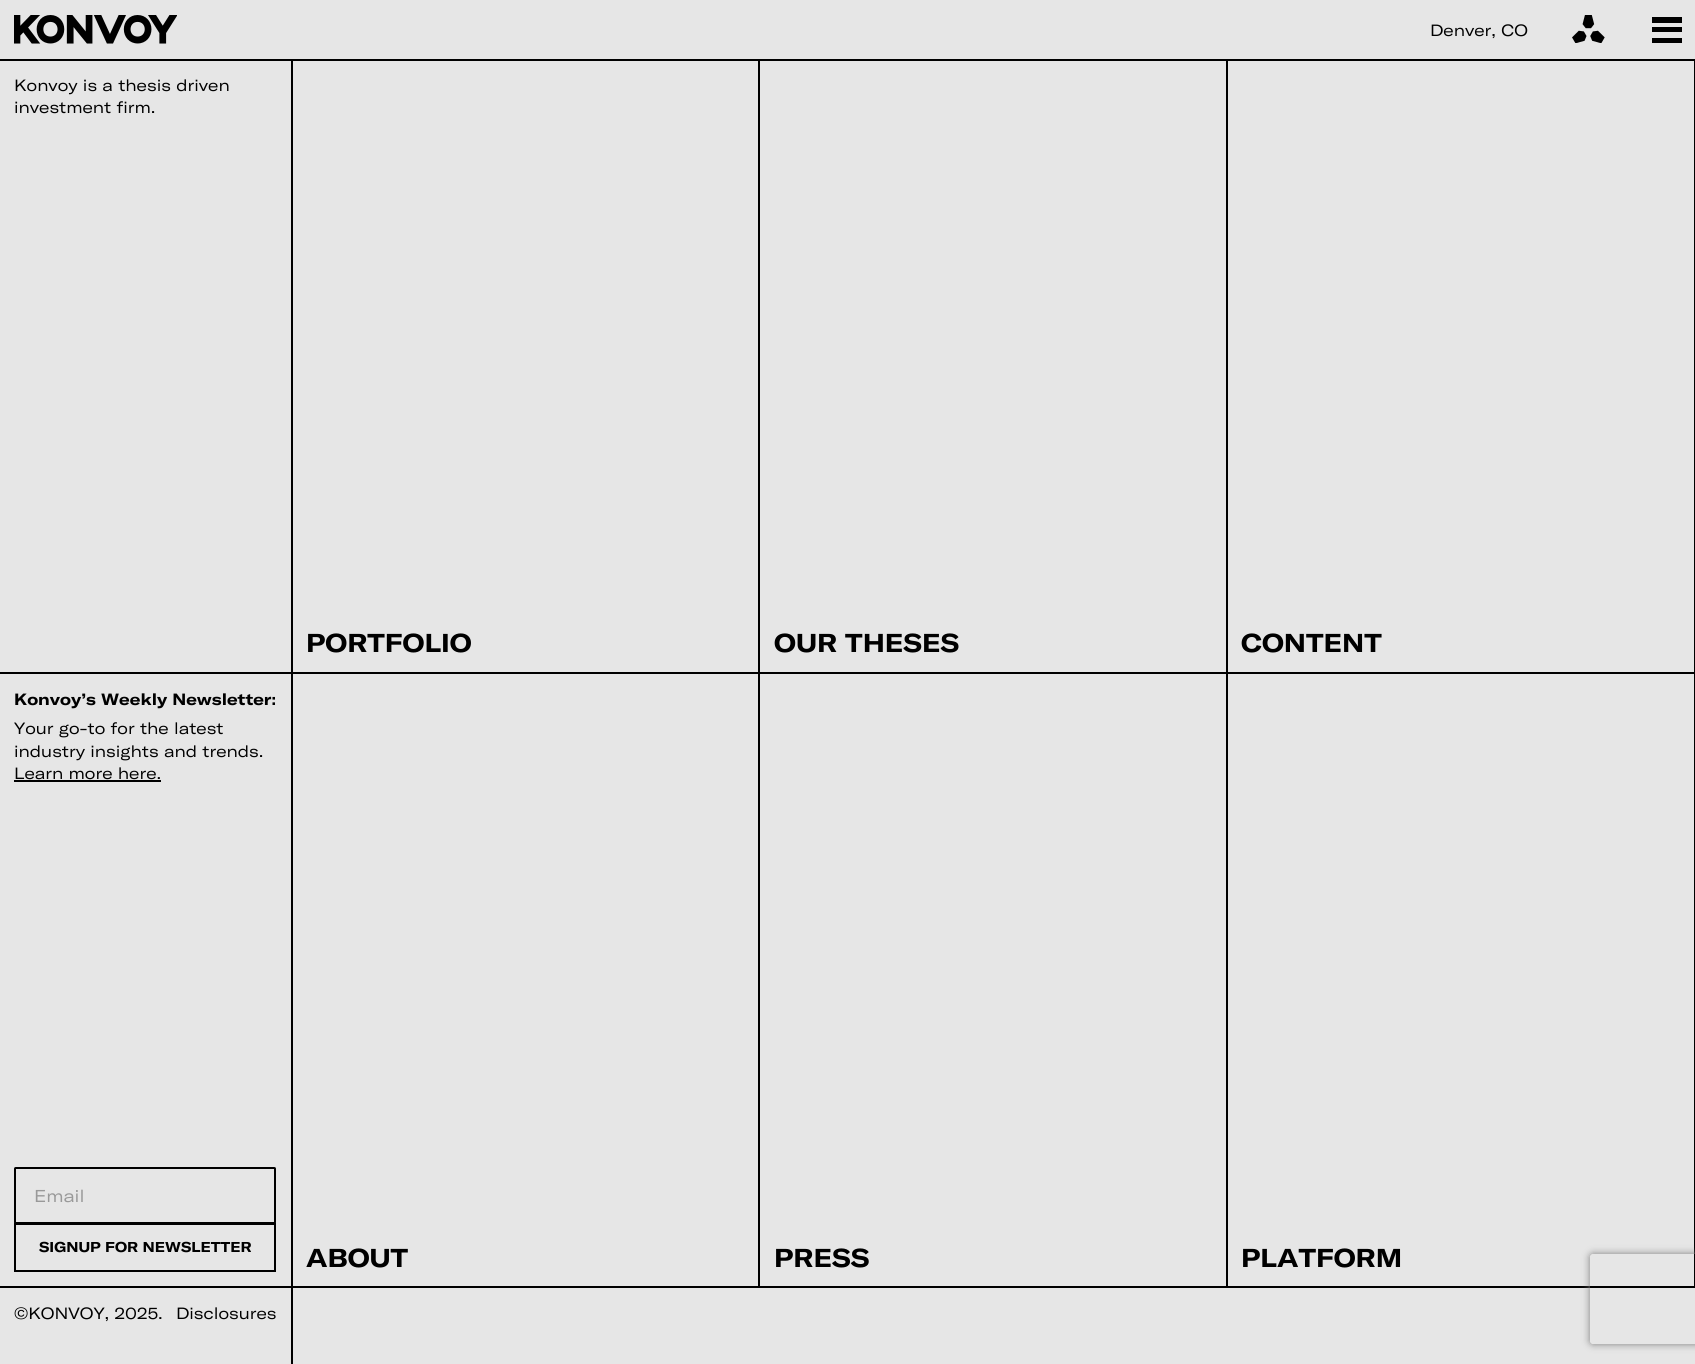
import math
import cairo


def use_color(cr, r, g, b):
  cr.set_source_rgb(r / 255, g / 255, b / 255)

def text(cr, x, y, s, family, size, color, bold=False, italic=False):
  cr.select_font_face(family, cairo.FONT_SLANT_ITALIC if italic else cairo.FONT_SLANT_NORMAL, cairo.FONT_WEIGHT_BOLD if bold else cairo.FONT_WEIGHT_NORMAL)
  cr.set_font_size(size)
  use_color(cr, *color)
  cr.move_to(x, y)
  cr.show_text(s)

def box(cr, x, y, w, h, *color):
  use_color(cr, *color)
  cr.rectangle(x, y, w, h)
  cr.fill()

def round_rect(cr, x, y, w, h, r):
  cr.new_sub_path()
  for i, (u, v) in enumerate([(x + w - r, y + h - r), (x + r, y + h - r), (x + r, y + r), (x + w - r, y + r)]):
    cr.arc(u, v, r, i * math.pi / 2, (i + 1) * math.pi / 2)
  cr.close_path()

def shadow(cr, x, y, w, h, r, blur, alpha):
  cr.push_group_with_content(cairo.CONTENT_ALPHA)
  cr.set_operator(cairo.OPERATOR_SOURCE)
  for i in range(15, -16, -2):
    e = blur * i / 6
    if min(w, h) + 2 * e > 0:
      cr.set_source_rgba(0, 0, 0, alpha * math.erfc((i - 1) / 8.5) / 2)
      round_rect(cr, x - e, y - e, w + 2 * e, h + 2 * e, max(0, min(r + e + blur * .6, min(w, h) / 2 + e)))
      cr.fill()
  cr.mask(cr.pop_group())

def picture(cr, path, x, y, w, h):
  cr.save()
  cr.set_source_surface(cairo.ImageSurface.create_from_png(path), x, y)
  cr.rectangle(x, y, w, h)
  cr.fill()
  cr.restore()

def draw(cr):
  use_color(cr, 230, 230, 230)
  cr.paint()
  box(cr, 291, 59, 2, 1305, 0, 0, 0)
  box(cr, 758, 59, 2, 1228, 0, 0, 0)
  box(cr, 1226, 59, 2, 1228, 0, 0, 0)
  box(cr, 1694, 59, 1, 1228, 0, 0, 0)
  box(cr, 0, 59, 1695, 2, 0, 0, 0)
  picture(cr, "img_01.png", 14, 15, 163, 29)
  picture(cr, "img_02.png", 1572, 15, 33, 28)
  box(cr, 1652, 17, 30, 6, 0, 0, 0)
  box(cr, 1652, 27, 30, 5, 0, 0, 0)
  box(cr, 1652, 38, 30, 5, 0, 0, 0)
  box(cr, 0, 672, 291, 2, 0, 0, 0)
  box(cr, 0, 1286, 291, 2, 0, 0, 0)
  box(cr, 14, 780, 147, 2, 0, 0, 0)
  round_rect(cr, 15, 1168, 260, 55, 0.5)
  cr.stroke()
  cr.rectangle(15, 1224, 260, 47)
  cr.stroke()
  box(cr, 293, 672, 466, 2, 0, 0, 0)
  box(cr, 759, 672, 468, 2, 0, 0, 0)
  box(cr, 1227, 672, 468, 2, 0, 0, 0)
  box(cr, 293, 1286, 1402, 2, 0, 0, 0)
  cr.save()
  cr.set_fill_rule(cairo.FILL_RULE_EVEN_ODD)
  cr.new_path()
  cr.move_to(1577, 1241)
  cr.line_to(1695, 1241)
  cr.line_to(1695, 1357)
  cr.line_to(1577, 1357)
  cr.close_path()
  cr.move_to(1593, 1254)
  cr.line_to(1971, 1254)
  cr.curve_to(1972.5, 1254, 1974, 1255.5, 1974, 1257)
  cr.line_to(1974, 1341)
  cr.curve_to(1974, 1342.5, 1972.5, 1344, 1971, 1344)
  cr.line_to(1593, 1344)
  cr.curve_to(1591.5, 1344, 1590, 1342.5, 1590, 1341)
  cr.line_to(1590, 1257)
  cr.curve_to(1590, 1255.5, 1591.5, 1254, 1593, 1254)
  cr.close_path()
  cr.clip()
  use_color(cr, 128, 128, 128)
  shadow(cr, 1590, 1254, 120, 90, 3, 4, 1)
  cr.restore()
  text(cr, 1430, 36, "Denver, CO", "GT America", 16.1, (0, 0, 0))
  text(cr, 14, 91, "Konvoy is a thesis driven", "GT America", 16.1, (0, 0, 0))
  text(cr, 14, 113, "investment firm.", "GT America", 16.1, (0, 0, 0))
  text(cr, 14, 705, "Konvoy’s Weekly Newsletter:", "GT America", 16.1, (0, 0, 0), bold=True)
  text(cr, 14, 734, "Your go-to for the latest", "GT America", 16.1, (0, 0, 0))
  text(cr, 14, 757, "industry insights and trends.", "GT America", 16.1, (0, 0, 0))
  text(cr, 14, 779, "Learn more here.", "GT America", 16.1, (0, 0, 0))
  text(cr, 34, 1202, "Email", "GT America", 17, (153, 153, 153))
  text(cr, 39, 1252, "SIGNUP FOR NEWSLETTER", "GT America", 14.1, (0, 0, 0), bold=True)
  text(cr, 14, 1319, "©KONVOY, 2025.", "GT America", 16.1, (0, 0, 0))
  text(cr, 176, 1319, "Disclosures", "GT America", 16.1, (0, 0, 0))
  text(cr, 306, 652, "PORTFOLIO", "GT America", 25.5, (0, 0, 0), bold=True)
  text(cr, 774, 652, "OUR THESES", "GT America", 25.5, (0, 0, 0), bold=True)
  text(cr, 1241, 652, "CONTENT", "GT America", 25.5, (0, 0, 0), bold=True)
  text(cr, 306, 1267, "ABOUT", "GT America", 25.5, (0, 0, 0), bold=True)
  text(cr, 774, 1267, "PRESS", "GT America", 25.5, (0, 0, 0), bold=True)
  text(cr, 1241, 1267, "PLATFORM", "GT America", 25.5, (0, 0, 0), bold=True)


surface = cairo.ImageSurface(cairo.FORMAT_RGB24, 1695, 1364)
cr = cairo.Context(surface)
options = cairo.FontOptions()
options.set_hint_metrics(cairo.HINT_METRICS_OFF)
options.set_hint_style(cairo.HINT_STYLE_NONE)
cr.set_font_options(options)
cr.set_miter_limit(4)
draw(cr)
surface.write_to_png("out.png")
